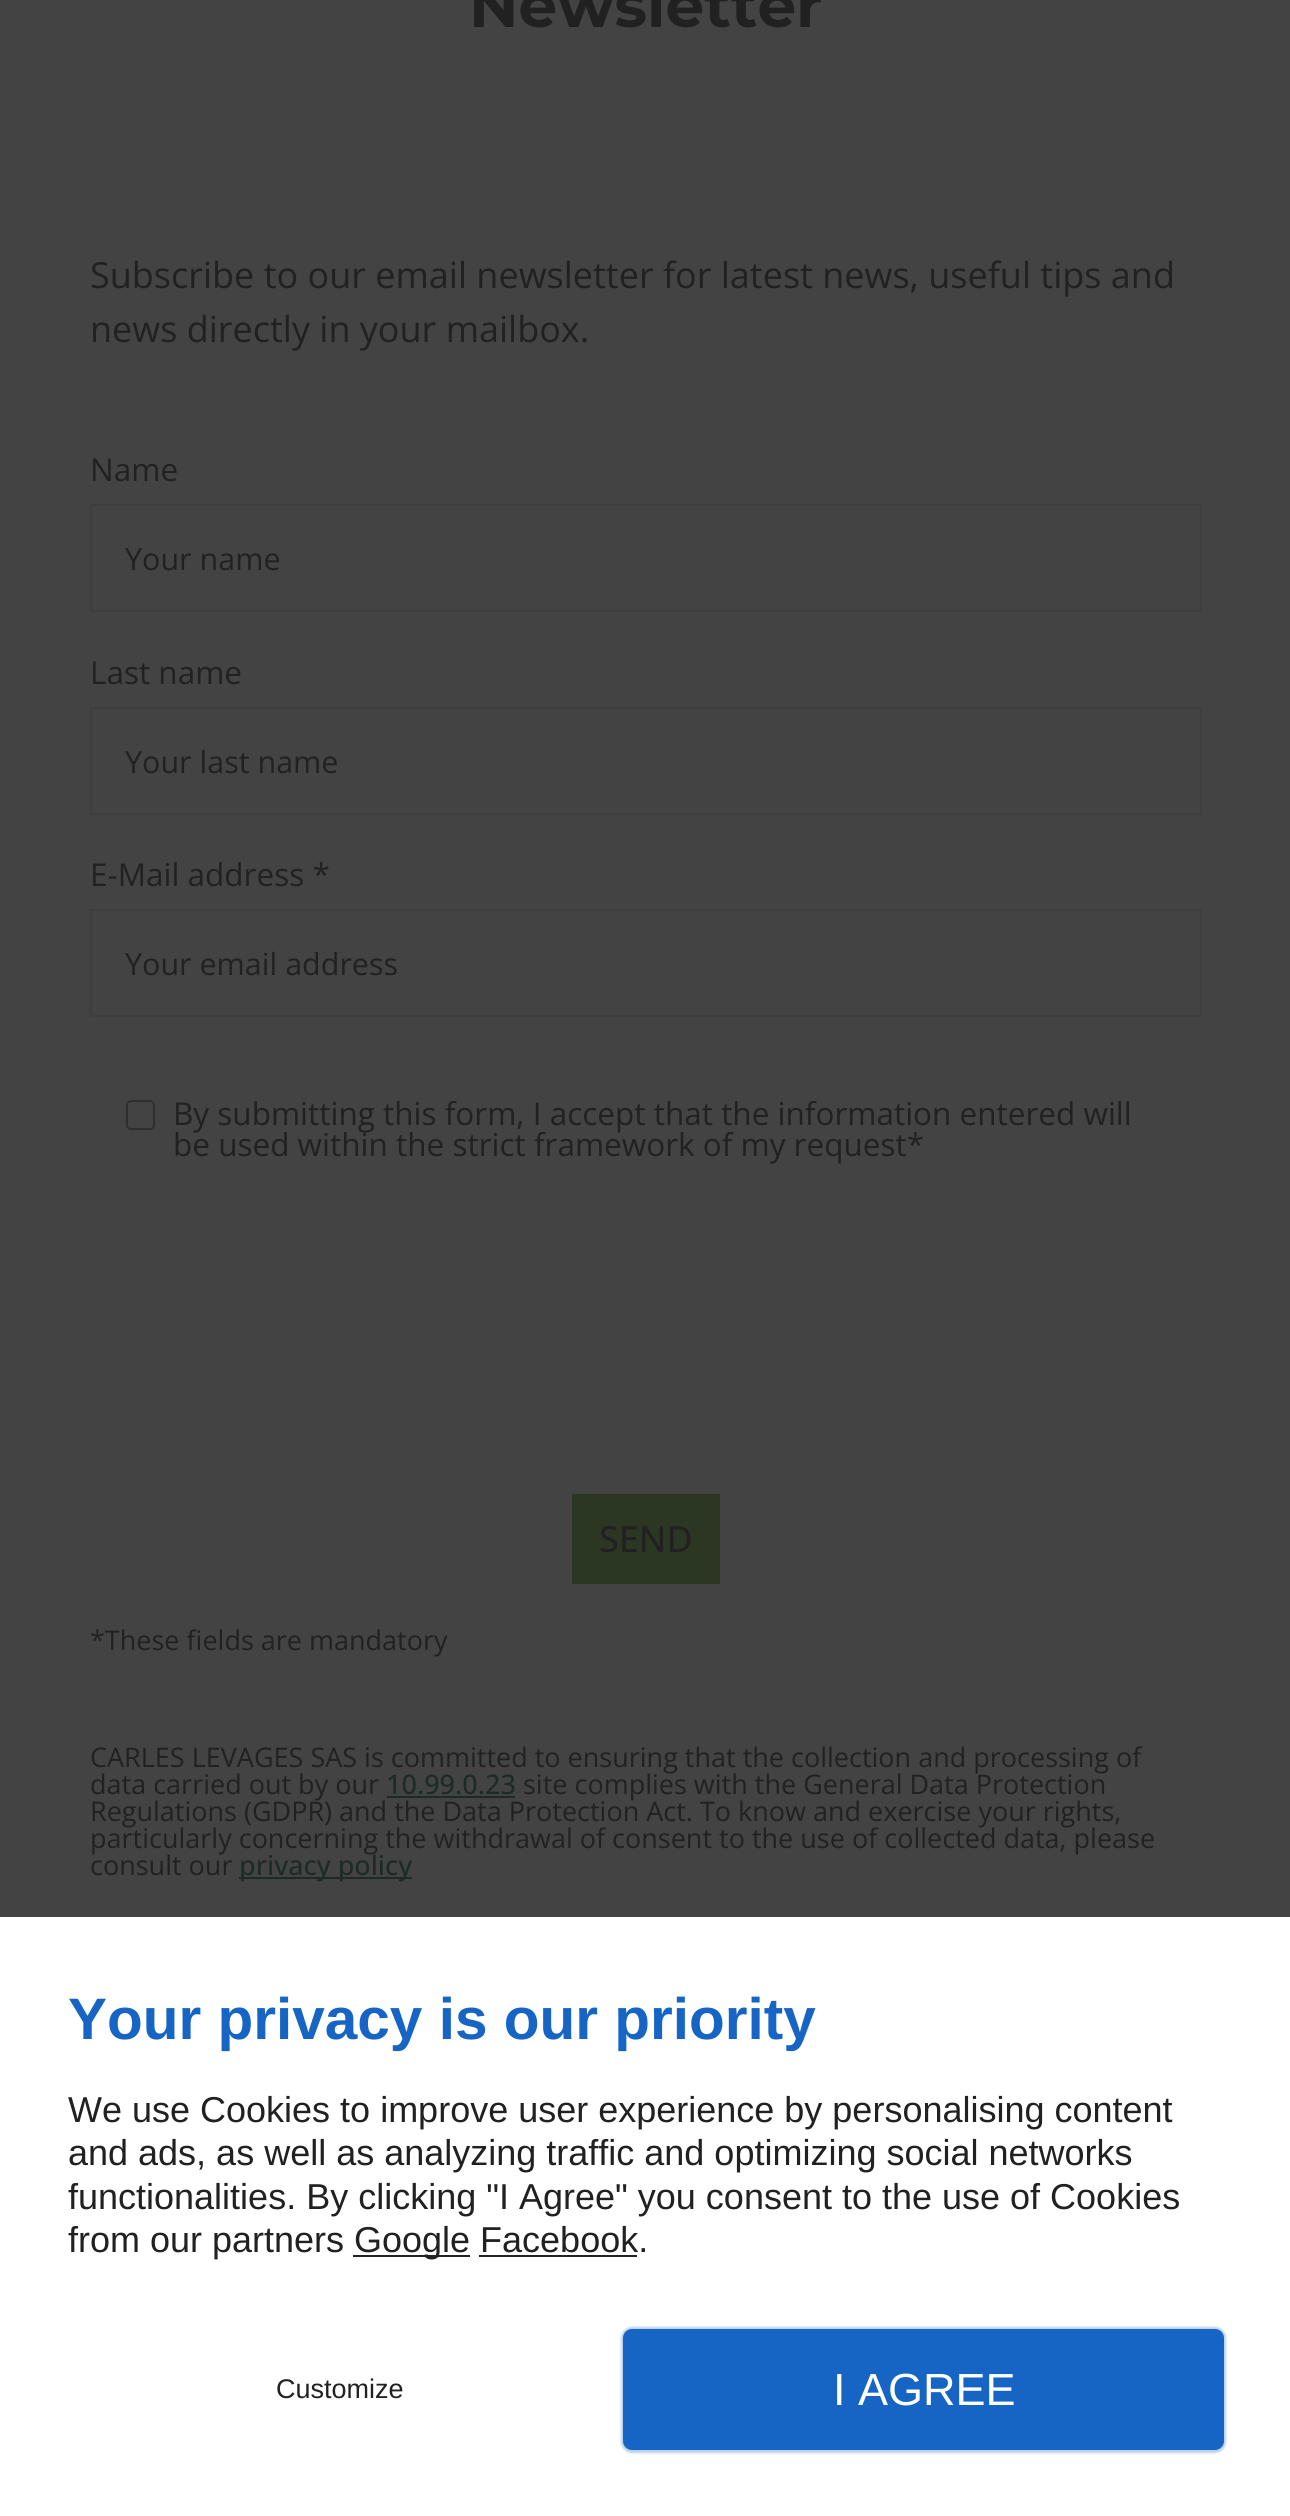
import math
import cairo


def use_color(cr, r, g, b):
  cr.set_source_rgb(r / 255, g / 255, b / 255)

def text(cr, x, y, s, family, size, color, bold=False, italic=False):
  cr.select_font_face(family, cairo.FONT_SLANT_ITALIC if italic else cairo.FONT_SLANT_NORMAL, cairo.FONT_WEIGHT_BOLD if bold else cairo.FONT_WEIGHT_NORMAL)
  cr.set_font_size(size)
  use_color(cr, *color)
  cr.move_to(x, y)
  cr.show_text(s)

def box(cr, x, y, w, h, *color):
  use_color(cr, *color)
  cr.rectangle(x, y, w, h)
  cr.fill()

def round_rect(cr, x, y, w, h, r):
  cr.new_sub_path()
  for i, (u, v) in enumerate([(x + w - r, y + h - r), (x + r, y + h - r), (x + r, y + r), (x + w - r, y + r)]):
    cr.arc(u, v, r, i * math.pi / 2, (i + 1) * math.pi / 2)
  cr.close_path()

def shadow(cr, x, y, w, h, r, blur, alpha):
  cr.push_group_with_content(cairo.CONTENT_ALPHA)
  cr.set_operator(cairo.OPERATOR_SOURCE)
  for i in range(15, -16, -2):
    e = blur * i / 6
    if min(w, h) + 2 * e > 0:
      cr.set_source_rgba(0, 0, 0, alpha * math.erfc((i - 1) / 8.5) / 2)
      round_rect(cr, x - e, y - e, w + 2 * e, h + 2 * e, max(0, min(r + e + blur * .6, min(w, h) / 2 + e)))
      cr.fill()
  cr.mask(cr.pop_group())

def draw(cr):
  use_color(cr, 67, 67, 67)
  cr.paint()
  cr.rectangle(91, 505, 1110, 106)
  use_color(cr, 62, 62, 62)
  cr.stroke()
  cr.rectangle(91, 708, 1110, 106)
  cr.stroke()
  cr.rectangle(91, 910, 1110, 106)
  cr.stroke()
  round_rect(cr, 127, 1101, 27, 28, 4)
  use_color(cr, 47, 47, 47)
  cr.stroke()
  box(cr, 572, 1494, 148, 90, 43, 55, 35)
  box(cr, 387, 1796, 128, 2, 29, 42, 37)
  box(cr, 239, 1877, 173, 2, 29, 42, 37)
  box(cr, 0, 1917, 1290, 599, 255, 255, 255)
  box(cr, 353, 2255, 117, 2, 34, 34, 34)
  use_color(cr, 22, 101, 196)
  shadow(cr, 621, 2327, 605, 126, 11, 1, 0.3)
  use_color(cr, 22, 101, 196)
  round_rect(cr, 625.5, 2331.5, 596, 116, 6.5)
  cr.fill_preserve()
  cr.set_line_width(5)
  cr.stroke()
  text(cr, 469, 27, "Newsletter", "Montserrat", 61.25, (33, 33, 33), bold=True)
  text(cr, 90, 288, "Subscribe to our email newsletter for latest news, useful tips and", "Open Sans", 36, (33, 33, 33))
  text(cr, 90, 342, "news directly in your mailbox.", "Open Sans", 36, (33, 33, 33))
  text(cr, 90, 481, "Name", "Open Sans", 31.5, (33, 33, 33))
  text(cr, 125, 570, "Your name", "Open Sans", 30.5, (33, 33, 33))
  text(cr, 90, 684, "Last name", "Open Sans", 31.5, (33, 33, 33))
  text(cr, 125, 773, "Your last name", "Open Sans", 30.5, (33, 33, 33))
  text(cr, 90, 886, "E-Mail address *", "Open Sans", 31.5, (33, 33, 33))
  text(cr, 125, 975, "Your email address", "Open Sans", 30.5, (33, 33, 33))
  text(cr, 173, 1125, "By submitting this form, I accept that the information entered will", "Open Sans", 31.5, (33, 33, 33))
  text(cr, 173, 1156, "be used within the strict framework of my request*", "Open Sans", 31.5, (33, 33, 33))
  text(cr, 599, 1552, "SEND", "Open Sans Medium", 36, (33, 33, 33))
  text(cr, 90, 1650, "*These fields are mandatory", "Open Sans", 27, (33, 33, 33))
  text(cr, 90, 1767, "CARLES LEVAGES SAS is committed to ensuring that the collection and processing of", "Open Sans", 27, (33, 33, 33))
  text(cr, 90, 1794, "data carried out by our", "Open Sans", 27, (33, 33, 33))
  text(cr, 386, 1794, "10.99.0.23", "Open Sans Medium", 27, (29, 42, 37))
  text(cr, 523, 1794, "site complies with the General Data Protection", "Open Sans", 27, (33, 33, 33))
  text(cr, 90, 1821, "Regulations (GDPR) and the Data Protection Act. To know and exercise your rights,", "Open Sans", 27, (33, 33, 33))
  text(cr, 90, 1848, "particularly concerning the withdrawal of consent to the use of collected data, please", "Open Sans", 27, (33, 33, 33))
  text(cr, 90, 1875, "consult our", "Open Sans", 27, (33, 33, 33))
  text(cr, 239, 1875, "privacy policy", "Open Sans Medium", 27, (29, 42, 37))
  text(cr, 68, 2039, "Your privacy is our priority", "Liberation Sans", 58.5, (22, 101, 196), bold=True)
  text(cr, 68, 2122, "We use Cookies to improve user experience by personalising content", "Liberation Sans", 36, (33, 33, 33))
  text(cr, 68, 2165, "and ads, as well as analyzing traffic and optimizing social networks", "Liberation Sans", 36, (33, 33, 33))
  text(cr, 68, 2209, "functionalities. By clicking \"I Agree\" you consent to the use of Cookies", "Liberation Sans", 36, (33, 33, 33))
  text(cr, 68, 2252, "from our partners", "Liberation Sans", 36, (33, 33, 33))
  text(cr, 354, 2252, "Google Facebook.", "Liberation Sans", 36, (33, 33, 33))
  box(cr, 479, 2255, 158, 2, 34, 34, 34)
  text(cr, 276, 2398, "Customize", "Liberation Sans", 27, (33, 33, 33))
  text(cr, 833, 2405, "I AGREE", "Liberation Sans", 45, (255, 255, 255))


surface = cairo.ImageSurface(cairo.FORMAT_RGB24, 1290, 2516)
cr = cairo.Context(surface)
options = cairo.FontOptions()
options.set_hint_metrics(cairo.HINT_METRICS_OFF)
options.set_hint_style(cairo.HINT_STYLE_NONE)
cr.set_font_options(options)
cr.set_miter_limit(4)
draw(cr)
surface.write_to_png("out.png")
